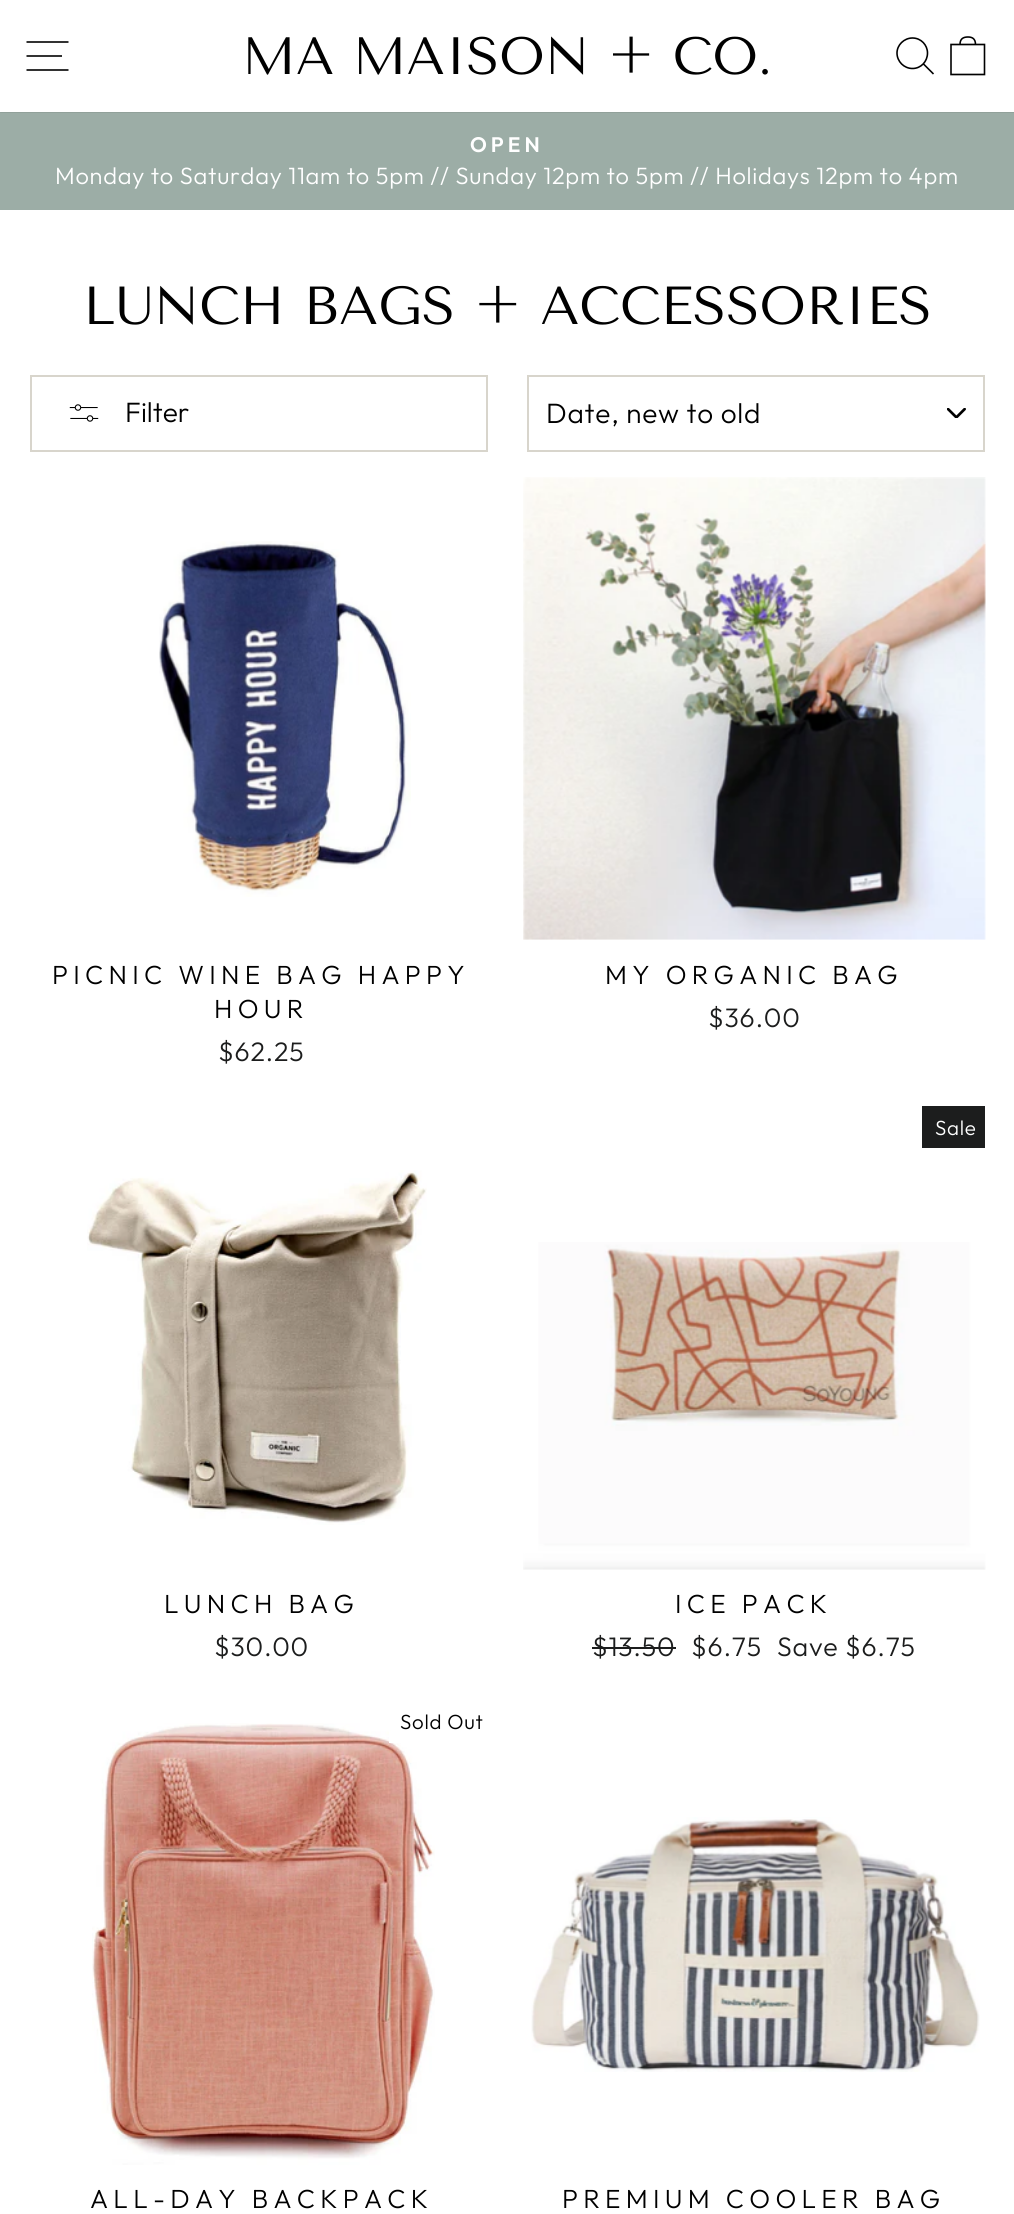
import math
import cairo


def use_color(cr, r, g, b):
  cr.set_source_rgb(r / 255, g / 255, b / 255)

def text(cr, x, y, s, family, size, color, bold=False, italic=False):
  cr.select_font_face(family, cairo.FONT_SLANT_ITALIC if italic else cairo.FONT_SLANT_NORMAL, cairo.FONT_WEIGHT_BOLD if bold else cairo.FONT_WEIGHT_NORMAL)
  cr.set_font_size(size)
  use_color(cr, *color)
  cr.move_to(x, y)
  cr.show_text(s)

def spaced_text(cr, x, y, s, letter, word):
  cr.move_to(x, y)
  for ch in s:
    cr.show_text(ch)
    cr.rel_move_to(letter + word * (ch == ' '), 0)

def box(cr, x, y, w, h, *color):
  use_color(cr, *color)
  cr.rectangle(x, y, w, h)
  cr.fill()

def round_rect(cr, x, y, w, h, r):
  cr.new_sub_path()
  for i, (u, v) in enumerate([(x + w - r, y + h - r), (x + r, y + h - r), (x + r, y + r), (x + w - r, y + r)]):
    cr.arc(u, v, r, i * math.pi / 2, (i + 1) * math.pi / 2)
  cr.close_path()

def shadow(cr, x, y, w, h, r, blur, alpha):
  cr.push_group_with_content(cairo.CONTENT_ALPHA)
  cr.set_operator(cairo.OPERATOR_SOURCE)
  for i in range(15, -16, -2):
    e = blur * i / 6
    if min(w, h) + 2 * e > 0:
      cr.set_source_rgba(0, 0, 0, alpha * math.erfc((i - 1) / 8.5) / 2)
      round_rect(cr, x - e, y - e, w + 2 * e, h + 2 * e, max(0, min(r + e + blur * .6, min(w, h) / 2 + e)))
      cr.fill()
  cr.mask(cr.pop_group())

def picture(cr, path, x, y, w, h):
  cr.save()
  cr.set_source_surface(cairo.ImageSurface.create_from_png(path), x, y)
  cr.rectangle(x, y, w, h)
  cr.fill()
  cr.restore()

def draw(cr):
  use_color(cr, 255, 255, 255)
  cr.paint()
  box(cr, 0, 112, 1014, 98, 156, 173, 166)
  cr.save()
  cr.rectangle(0, 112, 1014, 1)
  cr.clip()
  use_color(cr, 0, 0, 0)
  shadow(cr, 0, 0, 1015, 112, 0, 1, 0.2)
  cr.restore()
  cr.new_path()
  cr.move_to(26.5, 42)
  cr.line_to(68.5, 42)
  cr.move_to(26.5, 56)
  cr.line_to(62, 56)
  cr.move_to(26.5, 70)
  cr.line_to(68.5, 70)
  use_color(cr, 0, 0, 0)
  cr.set_line_width(1.6)
  cr.stroke()
  cr.new_path()
  cr.move_to(927.5, 53)
  cr.curve_to(927.5, 61.5, 921, 68.5, 912.5, 68.5)
  cr.curve_to(904, 68.5, 897, 61.5, 897, 53)
  cr.curve_to(897, 45, 904, 38, 912.5, 38)
  cr.curve_to(921, 38, 927.5, 45, 927.5, 53)
  cr.close_path()
  cr.move_to(933.5, 74)
  cr.line_to(923.5, 64)
  cr.stroke()
  cr.new_path()
  cr.move_to(951, 44.5)
  cr.line_to(984.5, 44.5)
  cr.line_to(984.5, 74.5)
  cr.line_to(951, 74.5)
  cr.close_path()
  cr.move_to(960, 44.5)
  cr.curve_to(960, 38.5, 963.5, 37, 968, 37)
  cr.curve_to(972, 37, 975.5, 38.5, 975.5, 44.5)
  cr.stroke()
  cr.rectangle(31, 376, 456, 75)
  use_color(cr, 216, 213, 204)
  cr.set_line_width(2)
  cr.stroke()
  picture(cr, "img_01.png", 69, 404, 30, 18)
  picture(cr, "img_02.png", 947, 408, 19, 10)
  cr.rectangle(528, 376, 456, 75)
  cr.stroke()
  picture(cr, "img_03.png", 159, 541, 252, 356)
  picture(cr, "img_04.png", 523, 477, 463, 463)
  picture(cr, "img_05.png", 87, 1170, 340, 355)
  box(cr, 922, 1106, 63, 42, 28, 29, 29)
  picture(cr, "img_06.png", 523, 1242, 463, 328)
  box(cr, 592, 1647, 84, 2, 28, 29, 29)
  picture(cr, "img_07.png", 92, 1723, 343, 442)
  box(cr, 389, 1731, 12, 12, 255, 255, 255)
  picture(cr, "img_08.png", 531, 1817, 449, 255)
  text(cr, 242, 74, "MA MAISON + CO.", "Tenor Sans", 52.5, (0, 0, 0))
  cr.select_font_face("Outfit SemiBold")
  cr.set_font_size(21)
  use_color(cr, 255, 255, 255)
  spaced_text(cr, 470, 152, "OPEN", 4, 0)
  cr.select_font_face("Outfit Light")
  cr.set_font_size(23.6)
  spaced_text(cr, 55, 184, "Monday to Saturday 11am to 5pm // Sunday 12pm to 5pm // Holidays 12pm to 4pm", 0.72, 0)
  text(cr, 83, 324, "LUNCH BAGS + ACCESSORIES", "Tenor Sans", 53.5, (0, 0, 0))
  text(cr, 125, 422, "Filter", "Outfit Light", 28, (0, 0, 0))
  spaced_text(cr, 546, 423, "Date, new to old", 0.75, 0)
  cr.set_font_size(26.25)
  spaced_text(cr, 52, 984, "PICNIC WINE BAG HAPPY", 5.25, 0)
  spaced_text(cr, 214, 1018, "HOUR", 5.25, 0)
  cr.set_font_size(26.75)
  use_color(cr, 28, 29, 29)
  spaced_text(cr, 218, 1061, "$62.25", 0.72, 0)
  cr.set_font_size(26.25)
  use_color(cr, 0, 0, 0)
  spaced_text(cr, 605, 984, "MY ORGANIC BAG", 5.25, 0)
  cr.set_font_size(26.75)
  use_color(cr, 28, 29, 29)
  spaced_text(cr, 708, 1027, "$36.00", 0.72, 0)
  cr.set_font_size(26.25)
  use_color(cr, 0, 0, 0)
  spaced_text(cr, 164, 1613, "LUNCH BAG", 5.25, 0)
  cr.set_font_size(26.75)
  use_color(cr, 28, 29, 29)
  spaced_text(cr, 214, 1656, "$30.00", 0.72, 0)
  cr.set_font_size(20.5)
  use_color(cr, 255, 255, 255)
  spaced_text(cr, 935, 1135, "Sale", 0.72, 0)
  cr.set_font_size(26.25)
  use_color(cr, 0, 0, 0)
  spaced_text(cr, 675, 1613, "ICE PACK", 5.25, 0)
  cr.set_font_size(26.75)
  use_color(cr, 28, 29, 29)
  spaced_text(cr, 592, 1656, "$13.50", 0.72, 0)
  spaced_text(cr, 691, 1656, "$6.75", 0.72, 0)
  spaced_text(cr, 777, 1656, "Save $6.75", 0.72, 0)
  cr.set_font_size(20.5)
  use_color(cr, 0, 0, 0)
  spaced_text(cr, 400, 1729, "Sold Out", 0.72, 0)
  cr.set_font_size(26.25)
  spaced_text(cr, 90, 2208, "ALL-DAY BACKPACK", 5.25, 0)
  spaced_text(cr, 562, 2208, "PREMIUM COOLER BAG", 5.25, 0)


surface = cairo.ImageSurface(cairo.FORMAT_RGB24, 1014, 2214)
cr = cairo.Context(surface)
options = cairo.FontOptions()
options.set_hint_metrics(cairo.HINT_METRICS_OFF)
options.set_hint_style(cairo.HINT_STYLE_NONE)
cr.set_font_options(options)
cr.set_miter_limit(4)
draw(cr)
surface.write_to_png("out.png")
